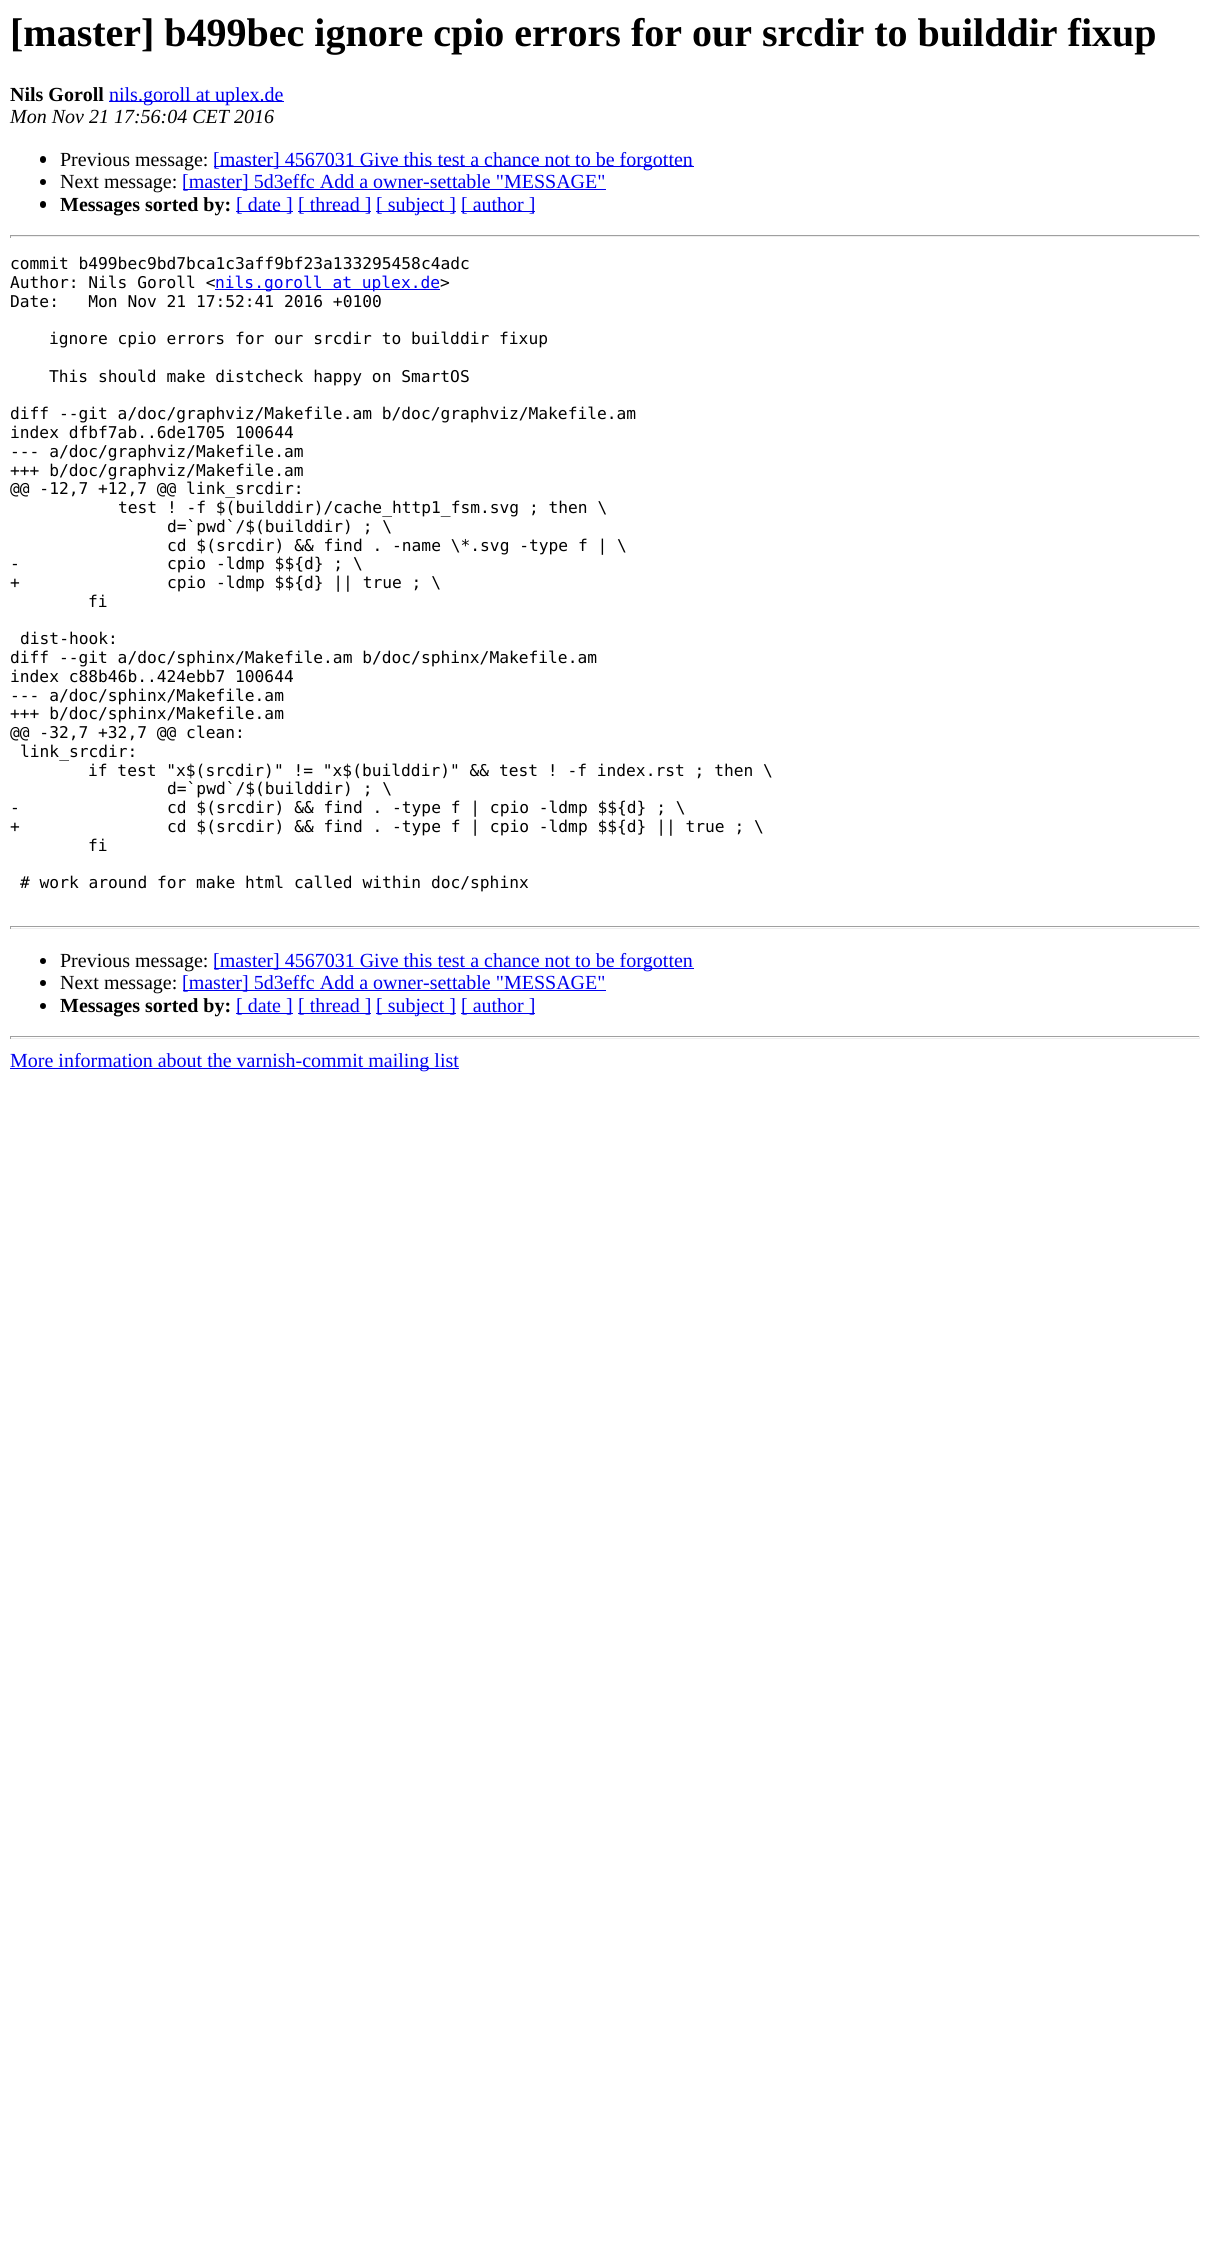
import math
import cairo


def use_color(cr, r, g, b):
  cr.set_source_rgb(r / 255, g / 255, b / 255)

def text(cr, x, y, s, family, size, color, bold=False, italic=False):
  cr.select_font_face(family, cairo.FONT_SLANT_ITALIC if italic else cairo.FONT_SLANT_NORMAL, cairo.FONT_WEIGHT_BOLD if bold else cairo.FONT_WEIGHT_NORMAL)
  cr.set_font_size(size)
  use_color(cr, *color)
  cr.move_to(x, y)
  cr.show_text(s)

def box(cr, x, y, w, h, *color):
  use_color(cr, *color)
  cr.rectangle(x, y, w, h)
  cr.fill()

def round_rect(cr, x, y, w, h, r):
  cr.new_sub_path()
  for i, (u, v) in enumerate([(x + w - r, y + h - r), (x + r, y + h - r), (x + r, y + r), (x + w - r, y + r)]):
    cr.arc(u, v, r, i * math.pi / 2, (i + 1) * math.pi / 2)
  cr.close_path()

def draw(cr):
  use_color(cr, 255, 255, 255)
  cr.paint()
  box(cr, 109, 101, 175, 1, 0, 0, 238)
  use_color(cr, 0, 0, 0)
  round_rect(cr, 40, 156, 6, 7, 3)
  cr.fill()
  box(cr, 214, 166, 480, 1, 0, 0, 238)
  use_color(cr, 0, 0, 0)
  cr.arc(43, 182, 3, 0, 2 * math.pi)
  cr.fill()
  box(cr, 183, 189, 423, 1, 0, 0, 238)
  use_color(cr, 0, 0, 0)
  round_rect(cr, 40, 201, 6, 7, 3)
  cr.fill()
  box(cr, 236, 211, 57, 1, 0, 0, 238)
  box(cr, 298, 211, 73, 1, 0, 0, 238)
  box(cr, 376, 211, 80, 1, 0, 0, 238)
  box(cr, 461, 211, 74, 1, 0, 0, 238)
  box(cr, 10, 235, 1190, 1, 159, 159, 159)
  box(cr, 1199, 235, 1, 3, 238, 238, 238)
  box(cr, 10, 236, 1190, 1, 238, 238, 238)
  box(cr, 10, 235, 1, 3, 159, 159, 159)
  box(cr, 215, 289, 225, 1, 0, 0, 238)
  box(cr, 10, 926, 1190, 1, 159, 159, 159)
  box(cr, 1199, 926, 1, 3, 238, 238, 238)
  box(cr, 10, 928, 1190, 1, 238, 238, 238)
  box(cr, 10, 926, 1, 3, 159, 159, 159)
  use_color(cr, 0, 0, 0)
  cr.arc(43, 961, 3, 0, 2 * math.pi)
  cr.fill()
  box(cr, 214, 968, 480, 1, 0, 0, 238)
  use_color(cr, 0, 0, 0)
  cr.arc(43, 983, 3, 0, 2 * math.pi)
  cr.fill()
  box(cr, 183, 990, 423, 1, 0, 0, 238)
  use_color(cr, 0, 0, 0)
  cr.arc(43, 1006, 3, 0, 2 * math.pi)
  cr.fill()
  box(cr, 236, 1013, 57, 1, 0, 0, 238)
  box(cr, 298, 1013, 73, 1, 0, 0, 238)
  box(cr, 376, 1013, 80, 1, 0, 0, 238)
  box(cr, 461, 1013, 74, 1, 0, 0, 238)
  box(cr, 10, 1036, 1190, 1, 159, 159, 159)
  box(cr, 1199, 1036, 1, 3, 238, 238, 238)
  box(cr, 10, 1038, 1190, 1, 238, 238, 238)
  box(cr, 10, 1036, 1, 3, 159, 159, 159)
  box(cr, 10, 1068, 449, 1, 0, 0, 238)
  text(cr, 10, 46, "[master] b499bec ignore cpio errors for our srcdir to builddir fixup", "Liberation Serif", 40, (0, 0, 0), bold=True)
  text(cr, 10, 101, "Nils Goroll", "Liberation Serif", 20, (0, 0, 0), bold=True)
  text(cr, 109, 101, "nils.goroll at uplex.de", "Liberation Serif", 20, (0, 0, 238))
  text(cr, 10, 123, "Mon Nov 21 17:56:04 CET 2016", "Liberation Serif", 20, (0, 0, 0), italic=True)
  text(cr, 60, 166, "Previous message:", "Liberation Serif", 20, (0, 0, 0))
  text(cr, 213, 166, "[master] 4567031 Give this test a chance not to be forgotten", "Liberation Serif", 20, (0, 0, 238))
  text(cr, 60, 188, "Next message:", "Liberation Serif", 20, (0, 0, 0))
  text(cr, 182, 188, "[master] 5d3effc Add a owner-settable \"MESSAGE\"", "Liberation Serif", 20, (0, 0, 238))
  text(cr, 60, 211, "Messages sorted by:", "Liberation Serif", 20, (0, 0, 0), bold=True)
  text(cr, 236, 211, "[ date ]", "Liberation Serif", 20, (0, 0, 238))
  text(cr, 298, 211, "[ thread ]", "Liberation Serif", 20, (0, 0, 238))
  text(cr, 376, 211, "[ subject ]", "Liberation Serif", 20, (0, 0, 238))
  text(cr, 461, 211, "[ author ]", "Liberation Serif", 20, (0, 0, 238))
  text(cr, 10, 269, "commit b499bec9bd7bca1c3aff9bf23a133295458c4adc", "DejaVu Sans Mono", 16.25, (0, 0, 0))
  text(cr, 10, 288, "Author: Nils Goroll <", "DejaVu Sans Mono", 16.25, (0, 0, 0))
  text(cr, 215, 288, "nils.goroll at uplex.de", "DejaVu Sans Mono", 16.25, (0, 0, 238))
  text(cr, 440, 288, ">", "DejaVu Sans Mono", 16.25, (0, 0, 0))
  text(cr, 10, 307, "Date:   Mon Nov 21 17:52:41 2016 +0100", "DejaVu Sans Mono", 16.25, (0, 0, 0))
  text(cr, 49, 344, "ignore cpio errors for our srcdir to builddir fixup", "DejaVu Sans Mono", 16.25, (0, 0, 0))
  text(cr, 49, 382, "This should make distcheck happy on SmartOS", "DejaVu Sans Mono", 16.25, (0, 0, 0))
  text(cr, 10, 419, "diff --git a/doc/graphviz/Makefile.am b/doc/graphviz/Makefile.am", "DejaVu Sans Mono", 16.25, (0, 0, 0))
  text(cr, 10, 438, "index dfbf7ab..6de1705 100644", "DejaVu Sans Mono", 16.25, (0, 0, 0))
  text(cr, 10, 457, "--- a/doc/graphviz/Makefile.am", "DejaVu Sans Mono", 16.25, (0, 0, 0))
  text(cr, 10, 476, "+++ b/doc/graphviz/Makefile.am", "DejaVu Sans Mono", 16.25, (0, 0, 0))
  text(cr, 10, 494, "@@ -12,7 +12,7 @@ link_srcdir:", "DejaVu Sans Mono", 16.25, (0, 0, 0))
  text(cr, 118, 513, "test ! -f $(builddir)/cache_http1_fsm.svg ; then \\", "DejaVu Sans Mono", 16.25, (0, 0, 0))
  text(cr, 167, 532, "d=`pwd`/$(builddir) ; \\", "DejaVu Sans Mono", 16.25, (0, 0, 0))
  text(cr, 167, 551, "cd $(srcdir) && find . -name \\*.svg -type f | \\", "DejaVu Sans Mono", 16.25, (0, 0, 0))
  text(cr, 10, 569, "-", "DejaVu Sans Mono", 16.25, (0, 0, 0))
  text(cr, 167, 569, "cpio -ldmp $${d} ; \\", "DejaVu Sans Mono", 16.25, (0, 0, 0))
  text(cr, 10, 588, "+", "DejaVu Sans Mono", 16.25, (0, 0, 0))
  text(cr, 167, 588, "cpio -ldmp $${d} || true ; \\", "DejaVu Sans Mono", 16.25, (0, 0, 0))
  text(cr, 88, 607, "fi", "DejaVu Sans Mono", 16.25, (0, 0, 0))
  text(cr, 20, 644, "dist-hook:", "DejaVu Sans Mono", 16.25, (0, 0, 0))
  text(cr, 10, 663, "diff --git a/doc/sphinx/Makefile.am b/doc/sphinx/Makefile.am", "DejaVu Sans Mono", 16.25, (0, 0, 0))
  text(cr, 10, 682, "index c88b46b..424ebb7 100644", "DejaVu Sans Mono", 16.25, (0, 0, 0))
  text(cr, 10, 701, "--- a/doc/sphinx/Makefile.am", "DejaVu Sans Mono", 16.25, (0, 0, 0))
  text(cr, 10, 719, "+++ b/doc/sphinx/Makefile.am", "DejaVu Sans Mono", 16.25, (0, 0, 0))
  text(cr, 10, 738, "@@ -32,7 +32,7 @@ clean:", "DejaVu Sans Mono", 16.25, (0, 0, 0))
  text(cr, 20, 757, "link_srcdir:", "DejaVu Sans Mono", 16.25, (0, 0, 0))
  text(cr, 88, 776, "if test \"x$(srcdir)\" != \"x$(builddir)\" && test ! -f index.rst ; then \\", "DejaVu Sans Mono", 16.25, (0, 0, 0))
  text(cr, 167, 794, "d=`pwd`/$(builddir) ; \\", "DejaVu Sans Mono", 16.25, (0, 0, 0))
  text(cr, 10, 813, "-", "DejaVu Sans Mono", 16.25, (0, 0, 0))
  text(cr, 167, 813, "cd $(srcdir) && find . -type f | cpio -ldmp $${d} ; \\", "DejaVu Sans Mono", 16.25, (0, 0, 0))
  text(cr, 10, 832, "+", "DejaVu Sans Mono", 16.25, (0, 0, 0))
  text(cr, 167, 832, "cd $(srcdir) && find . -type f | cpio -ldmp $${d} || true ; \\", "DejaVu Sans Mono", 16.25, (0, 0, 0))
  text(cr, 88, 851, "fi", "DejaVu Sans Mono", 16.25, (0, 0, 0))
  text(cr, 20, 888, "# work around for make html called within doc/sphinx", "DejaVu Sans Mono", 16.25, (0, 0, 0))
  text(cr, 60, 967, "Previous message:", "Liberation Serif", 20, (0, 0, 0))
  text(cr, 213, 967, "[master] 4567031 Give this test a chance not to be forgotten", "Liberation Serif", 20, (0, 0, 238))
  text(cr, 60, 989, "Next message:", "Liberation Serif", 20, (0, 0, 0))
  text(cr, 182, 989, "[master] 5d3effc Add a owner-settable \"MESSAGE\"", "Liberation Serif", 20, (0, 0, 238))
  text(cr, 60, 1012, "Messages sorted by:", "Liberation Serif", 20, (0, 0, 0), bold=True)
  text(cr, 236, 1012, "[ date ]", "Liberation Serif", 20, (0, 0, 238))
  text(cr, 298, 1012, "[ thread ]", "Liberation Serif", 20, (0, 0, 238))
  text(cr, 376, 1012, "[ subject ]", "Liberation Serif", 20, (0, 0, 238))
  text(cr, 461, 1012, "[ author ]", "Liberation Serif", 20, (0, 0, 238))
  text(cr, 10, 1067, "More information about the varnish-commit mailing list", "Liberation Serif", 20, (0, 0, 238))


surface = cairo.ImageSurface(cairo.FORMAT_RGB24, 1210, 2255)
cr = cairo.Context(surface)
options = cairo.FontOptions()
options.set_hint_metrics(cairo.HINT_METRICS_OFF)
options.set_hint_style(cairo.HINT_STYLE_NONE)
cr.set_font_options(options)
cr.set_miter_limit(4)
draw(cr)
surface.write_to_png("out.png")
